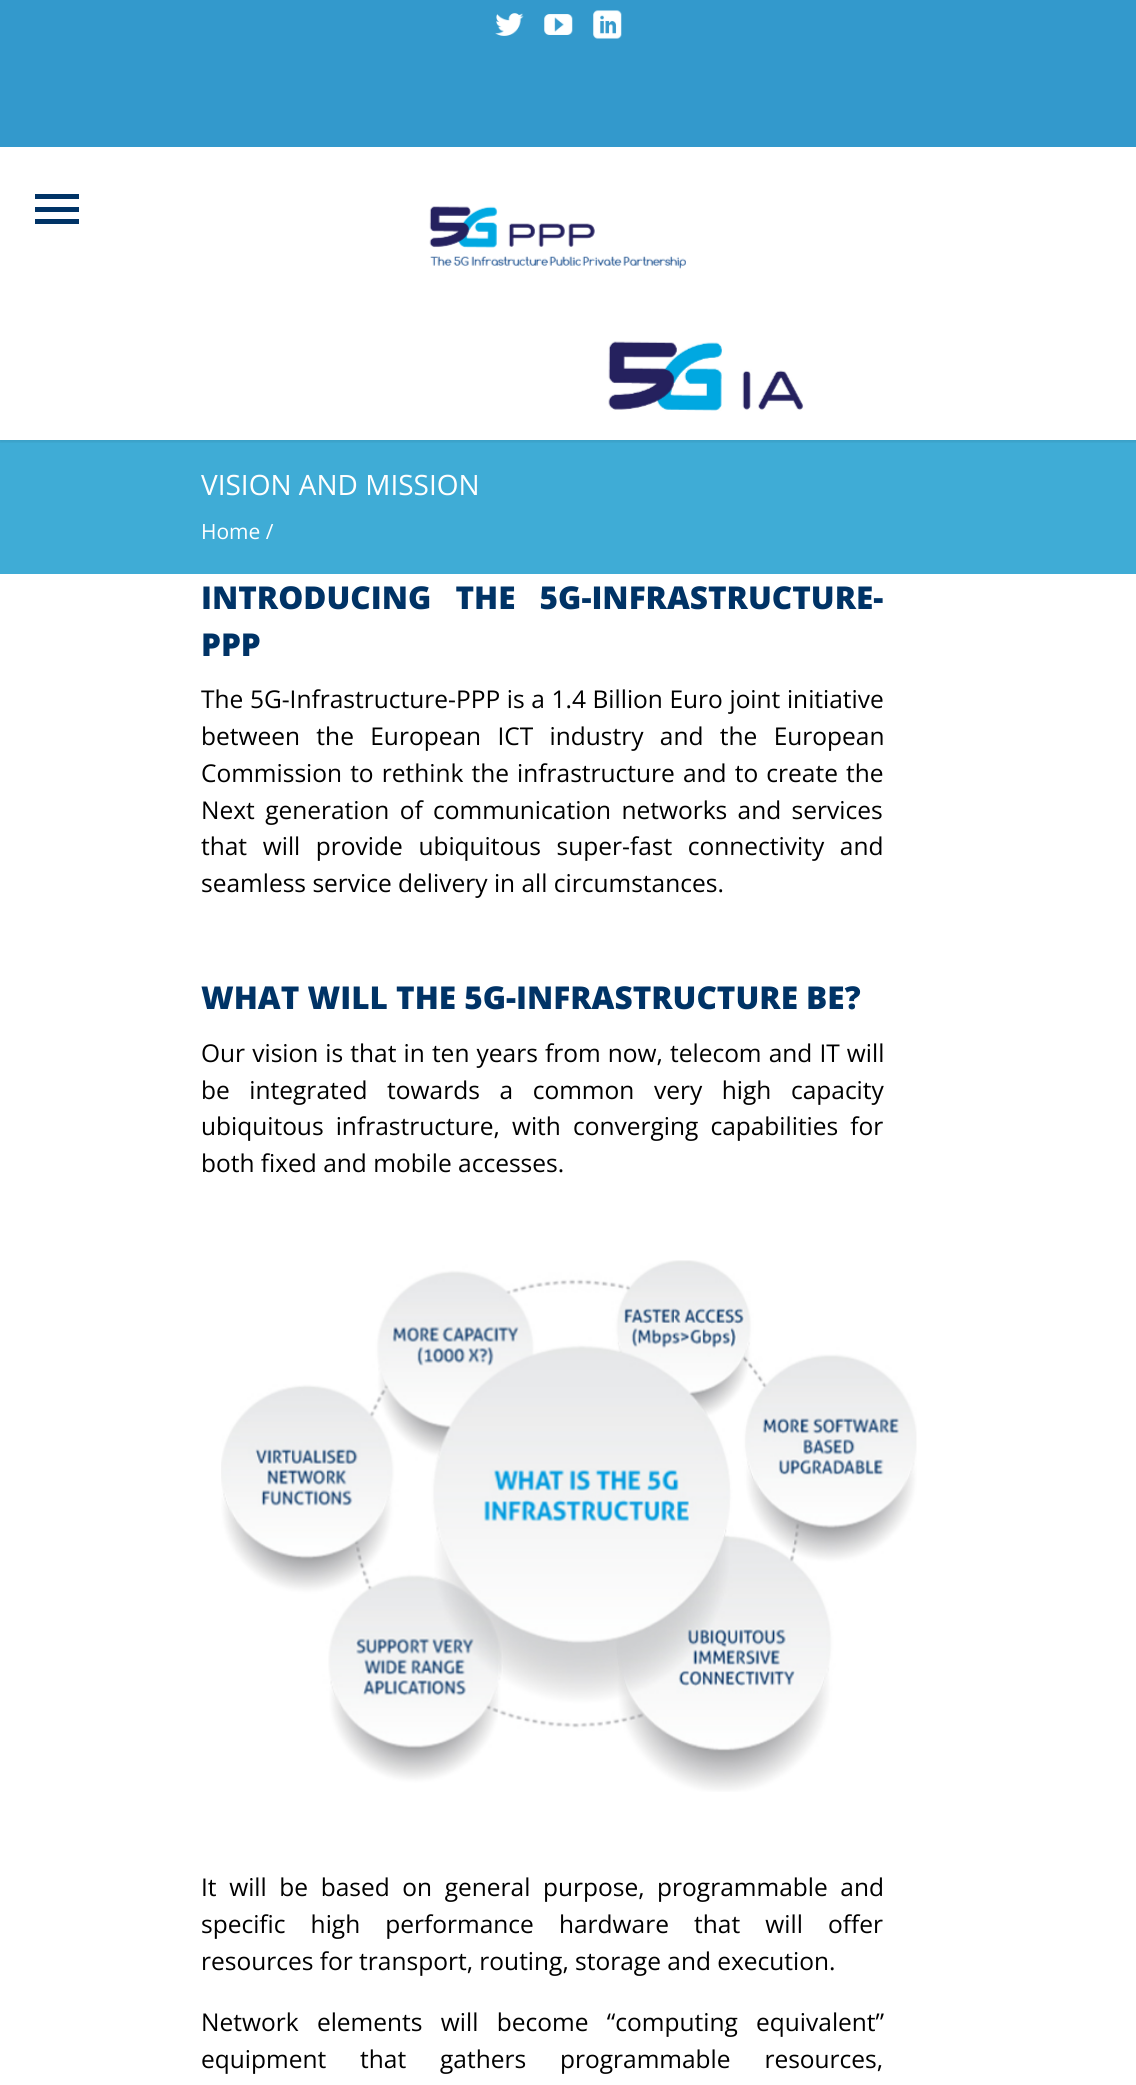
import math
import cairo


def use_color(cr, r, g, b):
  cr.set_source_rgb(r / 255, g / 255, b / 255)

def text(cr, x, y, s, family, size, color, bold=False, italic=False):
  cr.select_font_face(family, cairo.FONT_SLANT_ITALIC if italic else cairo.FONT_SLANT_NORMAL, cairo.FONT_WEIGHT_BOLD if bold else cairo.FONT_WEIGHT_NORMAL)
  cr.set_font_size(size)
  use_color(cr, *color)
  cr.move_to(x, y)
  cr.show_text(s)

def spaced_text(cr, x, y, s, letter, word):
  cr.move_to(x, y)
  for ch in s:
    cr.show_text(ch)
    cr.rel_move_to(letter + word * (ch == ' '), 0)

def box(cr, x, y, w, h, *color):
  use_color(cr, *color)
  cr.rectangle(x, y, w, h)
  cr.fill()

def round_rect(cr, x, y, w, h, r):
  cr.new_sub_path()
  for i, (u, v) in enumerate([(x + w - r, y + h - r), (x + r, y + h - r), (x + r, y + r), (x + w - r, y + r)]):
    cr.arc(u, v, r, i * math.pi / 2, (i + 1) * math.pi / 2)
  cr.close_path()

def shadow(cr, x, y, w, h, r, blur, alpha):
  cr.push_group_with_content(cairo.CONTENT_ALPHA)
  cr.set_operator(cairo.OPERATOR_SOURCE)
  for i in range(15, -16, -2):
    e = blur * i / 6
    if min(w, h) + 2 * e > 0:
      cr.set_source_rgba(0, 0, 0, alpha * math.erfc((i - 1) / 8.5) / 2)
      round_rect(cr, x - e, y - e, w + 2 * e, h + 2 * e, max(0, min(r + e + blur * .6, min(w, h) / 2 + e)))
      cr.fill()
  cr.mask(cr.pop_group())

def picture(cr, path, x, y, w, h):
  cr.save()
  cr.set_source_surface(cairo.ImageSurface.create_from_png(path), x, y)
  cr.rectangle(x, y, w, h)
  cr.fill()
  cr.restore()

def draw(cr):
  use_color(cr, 255, 255, 255)
  cr.paint()
  box(cr, 0, 0, 1136, 147, 51, 153, 204)
  picture(cr, "img_01.png", 495, 13, 29, 23)
  picture(cr, "img_02.png", 544, 14, 29, 21)
  picture(cr, "img_03.png", 593, 10, 29, 29)
  box(cr, 0, 440, 1136, 134, 63, 172, 214)
  cr.save()
  cr.rectangle(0, 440, 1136, 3)
  cr.clip()
  use_color(cr, 0, 0, 0)
  shadow(cr, 0, 151, 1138, 290, 0, 2.5, 0.12)
  cr.restore()
  box(cr, 0, 439, 1136, 1, 255, 255, 255)
  box(cr, 35, 194, 44, 5, 0, 51, 102)
  box(cr, 35, 207, 44, 5, 0, 51, 102)
  box(cr, 35, 219, 44, 5, 0, 51, 102)
  picture(cr, "img_04.png", 429, 206, 257, 63)
  picture(cr, "img_05.png", 608, 341, 196, 70)
  picture(cr, "img_06.png", 221, 1260, 696, 532)
  text(cr, 201, 495, "VISION AND MISSION", "Open Sans", 28, (255, 255, 255))
  text(cr, 201, 539, "Home /", "Open Sans", 21, (255, 255, 255))
  cr.select_font_face("Open Sans ExtraBold")
  cr.set_font_size(31.5)
  use_color(cr, 0, 51, 102)
  spaced_text(cr, 201, 609, "INTRODUCING THE 5G-INFRASTRUCTURE-", 0, 16)
  text(cr, 201, 656, "PPP", "Open Sans ExtraBold", 31.5, (0, 51, 102))
  cr.select_font_face("Open Sans")
  cr.set_font_size(24.5)
  use_color(cr, 0, 0, 0)
  spaced_text(cr, 201, 708, "The 5G-Infrastructure-PPP is a 1.4 Billion Euro joint initiative", 0, 0.25)
  spaced_text(cr, 201, 745, "between the European ICT industry and the European", 0, 10)
  spaced_text(cr, 201, 782, "Commission to rethink the infrastructure and to create the", 0, 1.75)
  spaced_text(cr, 201, 819, "Next generation of communication networks and services", 0, 4)
  spaced_text(cr, 201, 855, "that will provide ubiquitous super-fast connectivity and", 0, 9.25)
  text(cr, 201, 892, "seamless service delivery in all circumstances.", "Open Sans", 24.5, (0, 0, 0))
  text(cr, 201, 1009, "WHAT WILL THE 5G-INFRASTRUCTURE BE?", "Open Sans ExtraBold", 31.5, (0, 51, 102))
  cr.select_font_face("Open Sans")
  cr.set_font_size(24.5)
  use_color(cr, 0, 0, 0)
  spaced_text(cr, 201, 1062, "Our vision is that in ten years from now, telecom and IT will", 0, 0.75)
  spaced_text(cr, 201, 1099, "be integrated towards a common very high capacity", 0, 13.25)
  spaced_text(cr, 201, 1135, "ubiquitous infrastructure, with converging capabilities for", 0, 5.75)
  text(cr, 201, 1172, "both fixed and mobile accesses.", "Open Sans", 24.5, (0, 0, 0))
  spaced_text(cr, 201, 1896, "It will be based on general purpose, programmable and", 0, 6.25)
  spaced_text(cr, 201, 1933, "specific high performance hardware that will offer", 0, 18.75)
  text(cr, 201, 1970, "resources for transport, routing, storage and execution.", "Open Sans", 24.5, (0, 0, 0))
  spaced_text(cr, 201, 2031, "Network elements will become “computing equivalent”", 0, 12)
  spaced_text(cr, 201, 2068, "equipment that gathers programmable resources,", 0, 27.5)


surface = cairo.ImageSurface(cairo.FORMAT_RGB24, 1136, 2085)
cr = cairo.Context(surface)
options = cairo.FontOptions()
options.set_hint_metrics(cairo.HINT_METRICS_OFF)
options.set_hint_style(cairo.HINT_STYLE_NONE)
cr.set_font_options(options)
cr.set_miter_limit(4)
draw(cr)
surface.write_to_png("out.png")
